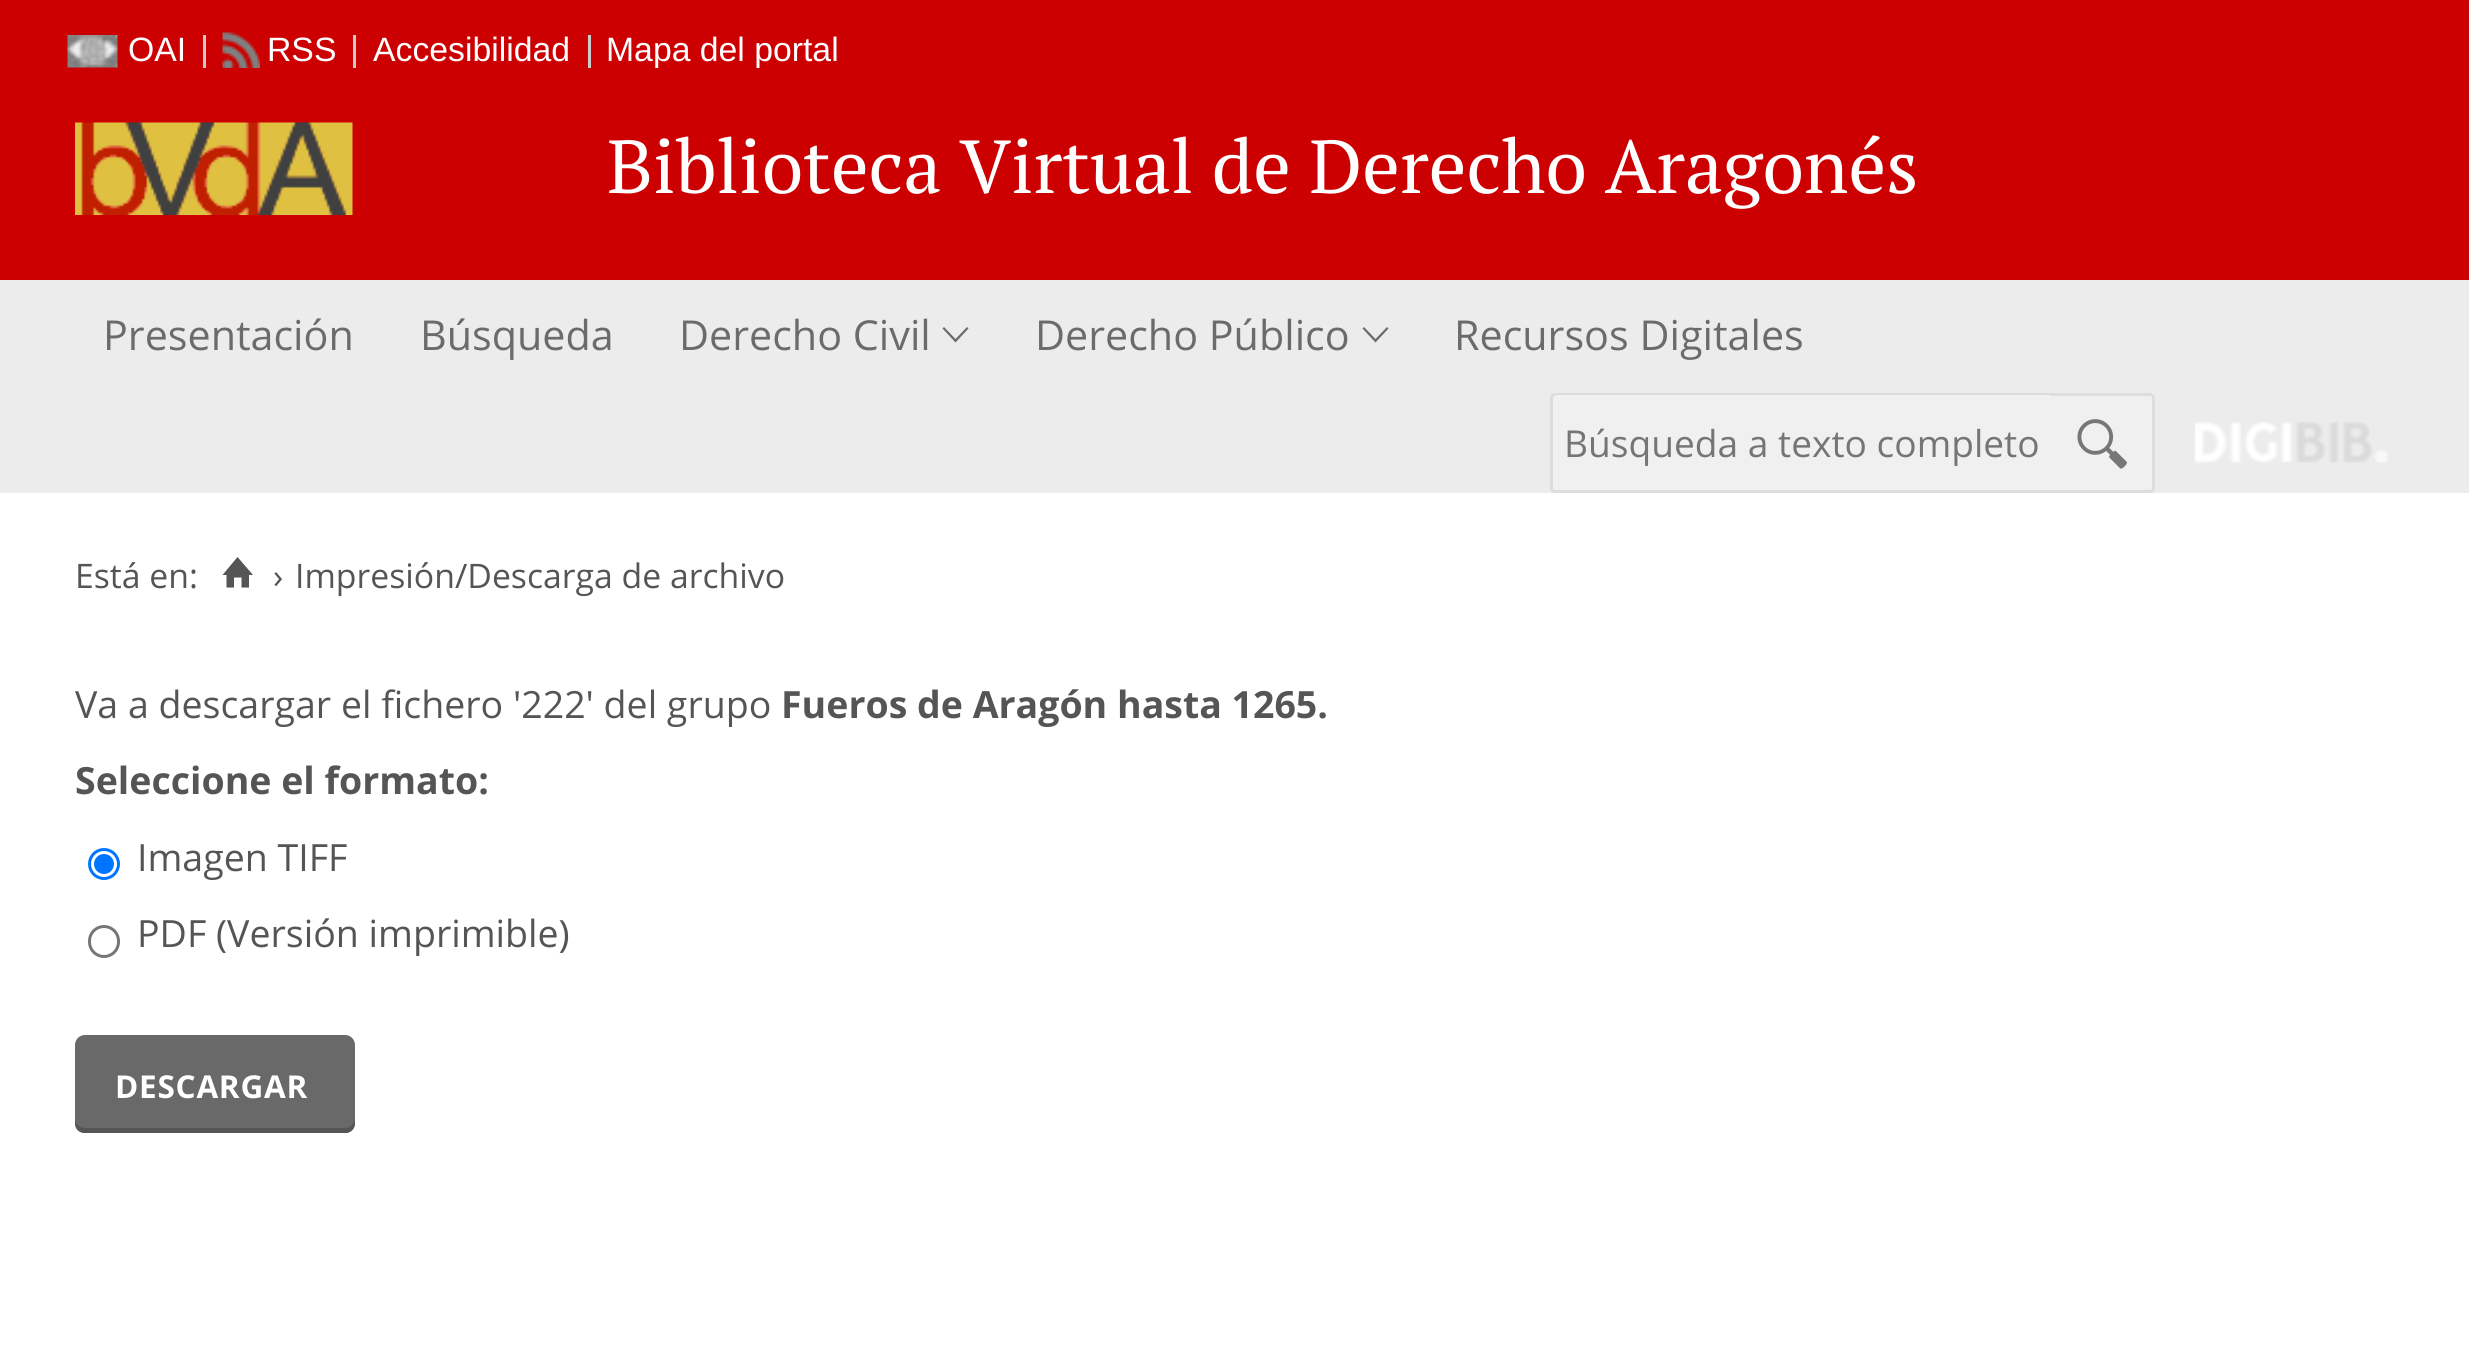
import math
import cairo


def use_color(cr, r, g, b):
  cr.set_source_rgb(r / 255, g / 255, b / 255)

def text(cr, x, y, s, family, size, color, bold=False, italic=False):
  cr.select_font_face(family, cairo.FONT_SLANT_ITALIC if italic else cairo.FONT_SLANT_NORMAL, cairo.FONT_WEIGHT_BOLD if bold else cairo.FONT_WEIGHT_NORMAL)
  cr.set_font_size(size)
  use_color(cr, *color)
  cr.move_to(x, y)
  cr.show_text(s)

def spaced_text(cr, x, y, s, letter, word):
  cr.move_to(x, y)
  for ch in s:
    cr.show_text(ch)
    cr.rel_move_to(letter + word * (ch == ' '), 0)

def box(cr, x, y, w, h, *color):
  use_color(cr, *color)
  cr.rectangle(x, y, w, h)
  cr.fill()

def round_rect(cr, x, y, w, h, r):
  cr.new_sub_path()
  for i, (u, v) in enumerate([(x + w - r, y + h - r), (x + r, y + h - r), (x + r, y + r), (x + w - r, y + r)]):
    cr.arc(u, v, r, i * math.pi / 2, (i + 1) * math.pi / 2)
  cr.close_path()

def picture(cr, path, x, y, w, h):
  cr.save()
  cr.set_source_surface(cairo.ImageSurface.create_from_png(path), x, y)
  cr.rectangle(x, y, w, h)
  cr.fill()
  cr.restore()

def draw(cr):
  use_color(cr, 255, 255, 255)
  cr.paint()
  box(cr, 0, 0, 2469, 280, 204, 0, 0)
  picture(cr, "img_01.png", 67, 35, 51, 33)
  box(cr, 203, 35, 3, 33, 204, 204, 204)
  picture(cr, "img_02.png", 222, 32, 38, 36)
  box(cr, 353, 35, 3, 33, 204, 204, 204)
  box(cr, 588, 35, 3, 33, 204, 204, 204)
  picture(cr, "img_03.png", 75, 122, 278, 93)
  box(cr, 0, 280, 2469, 213, 236, 236, 236)
  use_color(cr, 107, 107, 107)
  cr.new_path()
  cr.move_to(967, 327)
  cr.line_to(968.5, 328.5)
  cr.line_to(955.5, 342.5)
  cr.line_to(942.5, 328.5)
  cr.line_to(944, 327)
  cr.line_to(955.5, 339)
  cr.close_path()
  cr.fill()
  cr.new_path()
  cr.move_to(1387, 327)
  cr.line_to(1388.5, 328.5)
  cr.line_to(1375.5, 342.5)
  cr.line_to(1362.5, 328.5)
  cr.line_to(1364, 327)
  cr.line_to(1375.5, 339)
  cr.close_path()
  cr.fill()
  use_color(cr, 240, 240, 240)
  round_rect(cr, 1551.5, 394.5, 602, 97, 3.5)
  cr.fill_preserve()
  use_color(cr, 221, 221, 221)
  cr.set_line_width(3)
  cr.stroke()
  use_color(cr, 240, 240, 240)
  round_rect(cr, 1553, 395, 500, 95, 5)
  cr.fill()
  picture(cr, "img_04.png", 2077, 419, 50, 50)
  picture(cr, "img_05.png", 2194, 422, 194, 41)
  use_color(cr, 85, 85, 85)
  cr.new_path()
  cr.move_to(253, 575)
  cr.line_to(249, 575)
  cr.line_to(249, 587.5)
  cr.line_to(241.5, 587.5)
  cr.line_to(241.5, 577.5)
  cr.line_to(234, 577.5)
  cr.line_to(234, 587.5)
  cr.line_to(226.5, 587.5)
  cr.line_to(226.5, 575)
  cr.line_to(222.5, 575)
  cr.line_to(237.5, 557)
  cr.close_path()
  cr.fill()
  cr.arc(104, 864, 14.5, 0, 2 * math.pi)
  use_color(cr, 0, 117, 255)
  cr.stroke()
  cr.arc(104, 864, 10, 0, 2 * math.pi)
  cr.fill()
  round_rect(cr, 89.5, 926.5, 29, 30, 14.5)
  use_color(cr, 118, 118, 118)
  cr.stroke()
  use_color(cr, 105, 105, 105)
  round_rect(cr, 75, 1035, 280, 98, 10)
  cr.fill()
  use_color(cr, 85, 85, 85)
  cr.new_path()
  cr.move_to(75, 1118)
  cr.line_to(75, 1123)
  cr.curve_to(75, 1129, 79, 1133, 85, 1133)
  cr.line_to(345, 1133)
  cr.curve_to(351, 1133, 355, 1129, 355, 1123)
  cr.line_to(355, 1118)
  cr.curve_to(355, 1123, 351, 1128, 345, 1128)
  cr.line_to(85, 1128)
  cr.curve_to(79, 1128, 75, 1123, 75, 1118)
  cr.close_path()
  cr.fill()
  text(cr, 128, 61, "OAI", "Liberation Sans", 33.75, (255, 255, 255))
  text(cr, 267, 61, "RSS", "Liberation Sans", 33.75, (255, 255, 255))
  text(cr, 373, 61, "Accesibilidad", "Liberation Sans", 33.75, (255, 255, 255))
  text(cr, 606, 61, "Mapa del portal", "Liberation Sans", 33.75, (255, 255, 255))
  text(cr, 607, 193, "Biblioteca Virtual de Derecho Aragonés", "PT Serif", 75, (255, 255, 255))
  text(cr, 103, 350, "Presentación", "Open Sans", 41.25, (107, 107, 107))
  text(cr, 420, 350, "Búsqueda", "Open Sans", 41.25, (107, 107, 107))
  text(cr, 679, 350, "Derecho Civil", "Open Sans", 41.25, (107, 107, 107))
  text(cr, 1035, 350, "Derecho Público", "Open Sans", 41.25, (107, 107, 107))
  text(cr, 1454, 350, "Recursos Digitales", "Open Sans", 41.25, (107, 107, 107))
  text(cr, 1564, 457, "Búsqueda a texto completo", "Open Sans", 37.1, (117, 117, 117))
  text(cr, 75, 588, "Está en:", "Open Sans", 33.75, (85, 85, 85))
  text(cr, 273, 588, "›", "Open Sans", 33.75, (85, 85, 85))
  text(cr, 295, 588, "Impresión/Descarga de archivo", "Open Sans", 33.75, (85, 85, 85))
  text(cr, 75, 718, "Va a descargar el fichero '222' del grupo", "Open Sans", 37.5, (85, 85, 85))
  text(cr, 781, 718, "Fueros de Aragón hasta 1265.", "Open Sans", 37.5, (85, 85, 85), bold=True)
  text(cr, 75, 794, "Seleccione el formato:", "Open Sans", 37.5, (85, 85, 85), bold=True)
  text(cr, 137, 871, "Imagen TIFF", "Open Sans", 37.5, (85, 85, 85))
  text(cr, 137, 947, "PDF (Versión imprimible)", "Open Sans", 37.5, (85, 85, 85))
  cr.select_font_face("Open Sans", cairo.FONT_SLANT_NORMAL, cairo.FONT_WEIGHT_BOLD)
  cr.set_font_size(31.5)
  use_color(cr, 255, 255, 255)
  spaced_text(cr, 115, 1098, "DESCARGAR", 0.75, 0)


surface = cairo.ImageSurface(cairo.FORMAT_RGB24, 2469, 1372)
cr = cairo.Context(surface)
options = cairo.FontOptions()
options.set_hint_metrics(cairo.HINT_METRICS_OFF)
options.set_hint_style(cairo.HINT_STYLE_NONE)
cr.set_font_options(options)
cr.set_miter_limit(4)
draw(cr)
surface.write_to_png("out.png")
